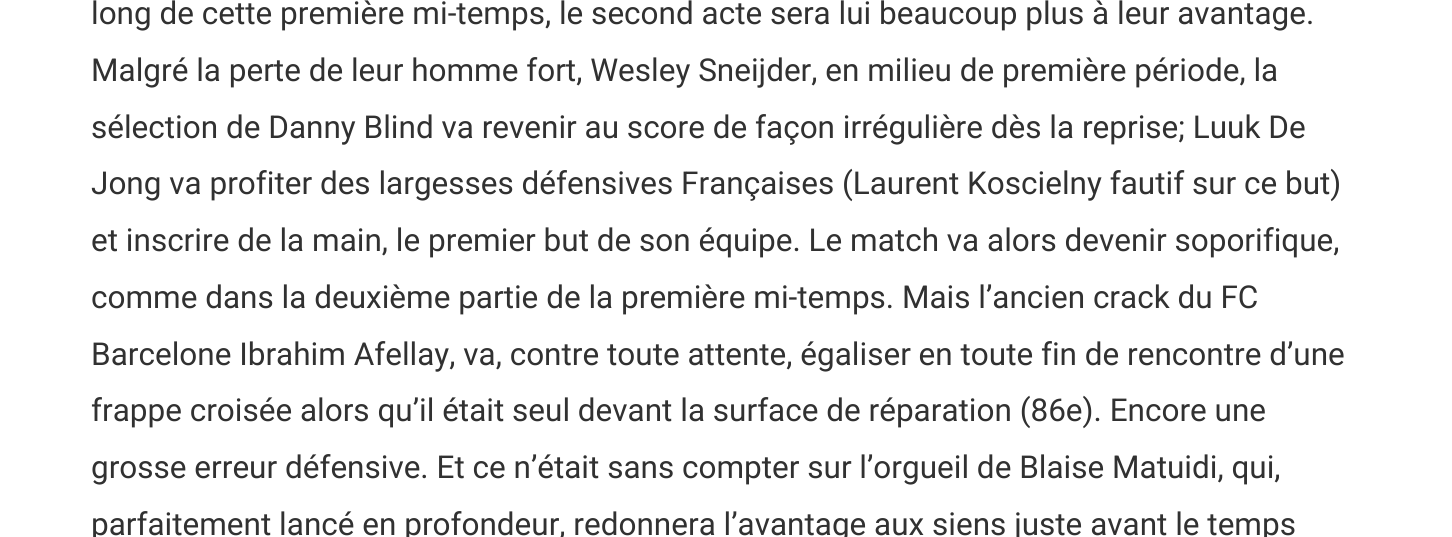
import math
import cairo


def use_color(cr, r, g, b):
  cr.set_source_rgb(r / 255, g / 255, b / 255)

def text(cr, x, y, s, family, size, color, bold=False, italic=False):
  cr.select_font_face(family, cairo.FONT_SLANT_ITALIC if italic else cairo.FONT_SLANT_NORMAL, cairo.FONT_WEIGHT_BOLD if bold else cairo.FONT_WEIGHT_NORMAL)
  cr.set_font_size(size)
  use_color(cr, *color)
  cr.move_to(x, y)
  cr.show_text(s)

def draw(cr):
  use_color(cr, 255, 255, 255)
  cr.paint()
  text(cr, 91, 24, "long de cette première mi-temps, le second acte sera lui beaucoup plus à leur avantage.", "Roboto", 31.5, (49, 49, 49))
  text(cr, 91, 81, "Malgré la perte de leur homme fort, Wesley Sneijder, en milieu de première période, la", "Roboto", 31.5, (49, 49, 49))
  text(cr, 91, 138, "sélection de Danny Blind va revenir au score de façon irrégulière dès la reprise; Luuk De", "Roboto", 31.5, (49, 49, 49))
  text(cr, 91, 194, "Jong va profiter des largesses défensives Françaises (Laurent Koscielny fautif sur ce but)", "Roboto", 31.5, (49, 49, 49))
  text(cr, 91, 251, "et inscrire de la main, le premier but de son équipe. Le match va alors devenir soporifique,", "Roboto", 31.5, (49, 49, 49))
  text(cr, 91, 308, "comme dans la deuxième partie de la première mi-temps. Mais l’ancien crack du FC", "Roboto", 31.5, (49, 49, 49))
  text(cr, 91, 365, "Barcelone Ibrahim Afellay, va, contre toute attente, égaliser en toute fin de rencontre d’une", "Roboto", 31.5, (49, 49, 49))
  text(cr, 91, 421, "frappe croisée alors qu’il était seul devant la surface de réparation (86e). Encore une", "Roboto", 31.5, (49, 49, 49))
  text(cr, 91, 478, "grosse erreur défensive. Et ce n’était sans compter sur l’orgueil de Blaise Matuidi, qui,", "Roboto", 31.5, (49, 49, 49))
  text(cr, 91, 535, "parfaitement lancé en profondeur, redonnera l’avantage aux siens juste avant le temps", "Roboto", 31.5, (49, 49, 49))


surface = cairo.ImageSurface(cairo.FORMAT_RGB24, 1452, 537)
cr = cairo.Context(surface)
options = cairo.FontOptions()
options.set_hint_metrics(cairo.HINT_METRICS_OFF)
options.set_hint_style(cairo.HINT_STYLE_NONE)
cr.set_font_options(options)
cr.set_miter_limit(4)
draw(cr)
surface.write_to_png("out.png")
